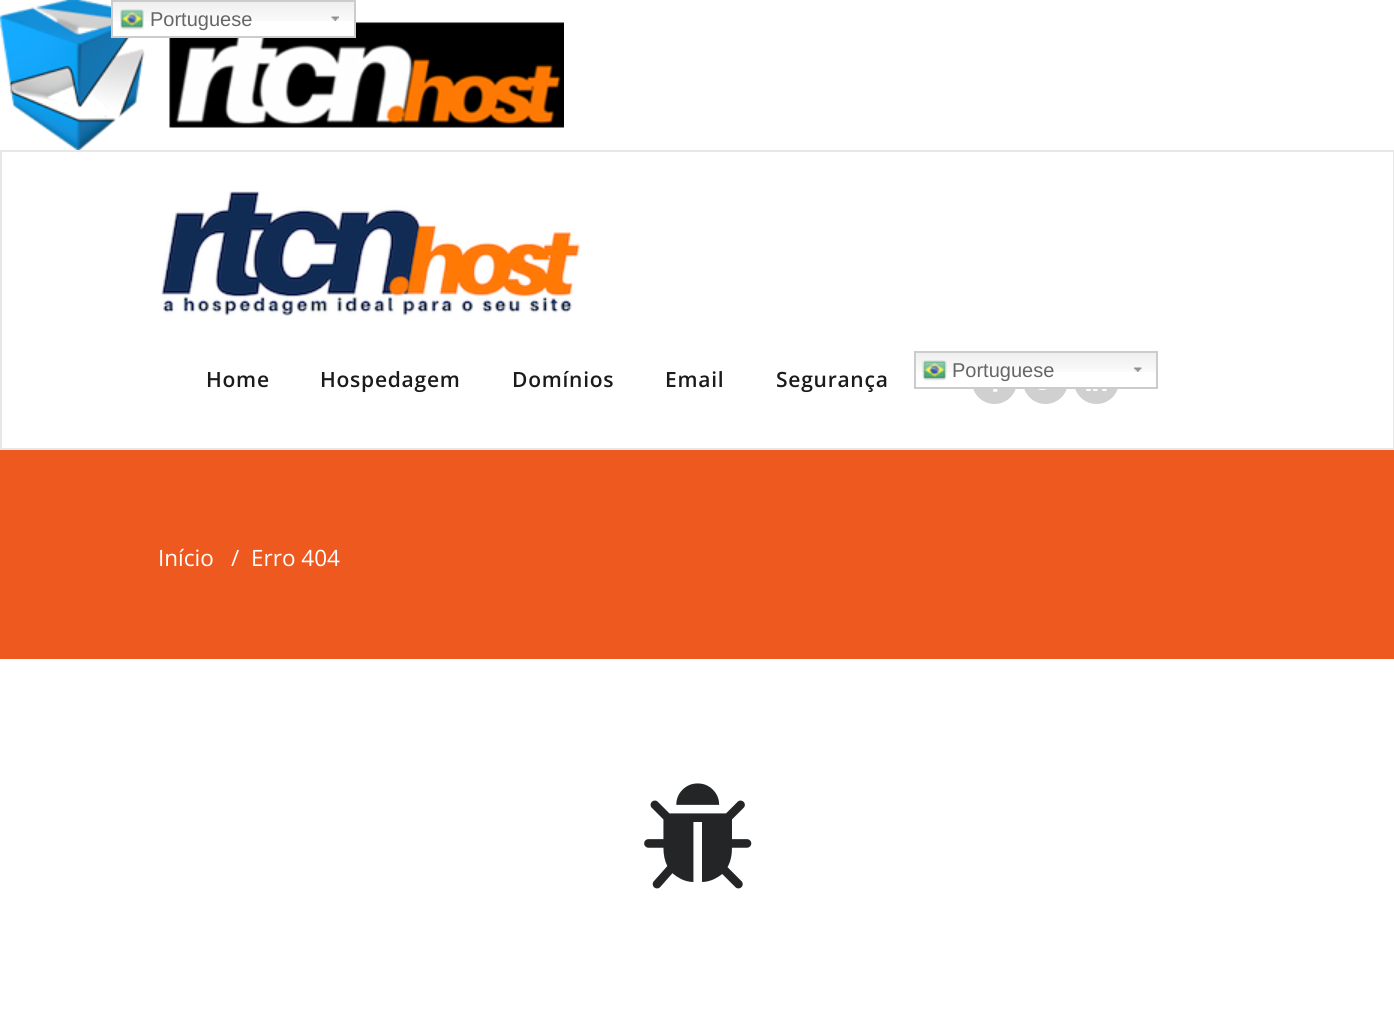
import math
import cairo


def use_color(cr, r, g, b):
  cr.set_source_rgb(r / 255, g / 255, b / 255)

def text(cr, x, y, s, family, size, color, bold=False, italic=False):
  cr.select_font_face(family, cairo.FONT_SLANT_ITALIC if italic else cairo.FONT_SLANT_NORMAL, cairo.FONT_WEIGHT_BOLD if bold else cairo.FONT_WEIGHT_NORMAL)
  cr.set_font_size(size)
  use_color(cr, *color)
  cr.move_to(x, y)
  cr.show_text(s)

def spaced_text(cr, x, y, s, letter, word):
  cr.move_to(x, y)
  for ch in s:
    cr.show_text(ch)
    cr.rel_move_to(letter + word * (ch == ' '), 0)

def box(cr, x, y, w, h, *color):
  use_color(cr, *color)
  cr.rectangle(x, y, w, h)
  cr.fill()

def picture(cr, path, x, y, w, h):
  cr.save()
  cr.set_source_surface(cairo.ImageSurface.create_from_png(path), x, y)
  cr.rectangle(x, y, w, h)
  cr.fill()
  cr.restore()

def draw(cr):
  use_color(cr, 255, 255, 255)
  cr.paint()
  picture(cr, "img_01.png", 0, 0, 564, 150)
  box(cr, 113, 21, 241, 15, 255, 255, 255)
  picture(cr, "img_02.png", 113, 2, 241, 19)
  picture(cr, "img_03.png", 331, 16, 8, 5)
  cr.rectangle(112, 1, 243, 36)
  use_color(cr, 204, 204, 204)
  cr.stroke()
  picture(cr, "img_04.png", 120, 9, 24, 21)
  cr.rectangle(1, 151, 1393, 298)
  use_color(cr, 231, 231, 231)
  cr.stroke()
  picture(cr, "img_05.png", 161, 191, 420, 125)
  use_color(cr, 208, 208, 208)
  cr.arc(994.5, 381.5, 22.5, 0, 2 * math.pi)
  cr.fill()
  picture(cr, "img_06.png", 993, 389, 5, 3)
  cr.arc(1045.5, 381.5, 22.5, 0, 2 * math.pi)
  cr.fill()
  picture(cr, "img_07.png", 1037, 389, 10, 1)
  cr.arc(1096.5, 381.5, 22.5, 0, 2 * math.pi)
  cr.fill()
  picture(cr, "img_08.png", 1086, 389, 21, 2)
  box(cr, 972, 372, 147, 15, 255, 255, 255)
  picture(cr, "img_09.png", 913, 351, 243, 21)
  picture(cr, "img_10.png", 1134, 367, 8, 5)
  cr.rectangle(915, 352, 242, 36)
  use_color(cr, 204, 204, 204)
  cr.stroke()
  picture(cr, "img_11.png", 922, 360, 25, 21)
  box(cr, 0, 450, 1394, 209, 238, 89, 31)
  picture(cr, "img_12.png", 644, 783, 108, 106)
  text(cr, 150, 26, "Portuguese", "Liberation Sans", 20, (102, 102, 102))
  cr.select_font_face("Open Sans SemiBold")
  cr.set_font_size(21)
  use_color(cr, 27, 27, 27)
  spaced_text(cr, 206, 387, "Home", 0.75, 0)
  spaced_text(cr, 320, 387, "Hospedagem", 0.75, 0)
  spaced_text(cr, 512, 387, "Domínios", 0.75, 0)
  spaced_text(cr, 665, 387, "Email", 0.75, 0)
  spaced_text(cr, 776, 387, "Segurança", 0.75, 0)
  text(cr, 952, 377, "Portuguese", "Liberation Sans", 20, (102, 102, 102))
  text(cr, 158, 566, "Início", "Open Sans", 22.5, (255, 255, 255))
  text(cr, 231, 566, "/", "Open Sans", 22.5, (255, 255, 255))
  text(cr, 251, 566, "Erro 404", "Open Sans", 22.5, (255, 255, 255))


surface = cairo.ImageSurface(cairo.FORMAT_RGB24, 1394, 1035)
cr = cairo.Context(surface)
options = cairo.FontOptions()
options.set_hint_metrics(cairo.HINT_METRICS_OFF)
options.set_hint_style(cairo.HINT_STYLE_NONE)
cr.set_font_options(options)
cr.set_miter_limit(4)
draw(cr)
surface.write_to_png("out.png")
